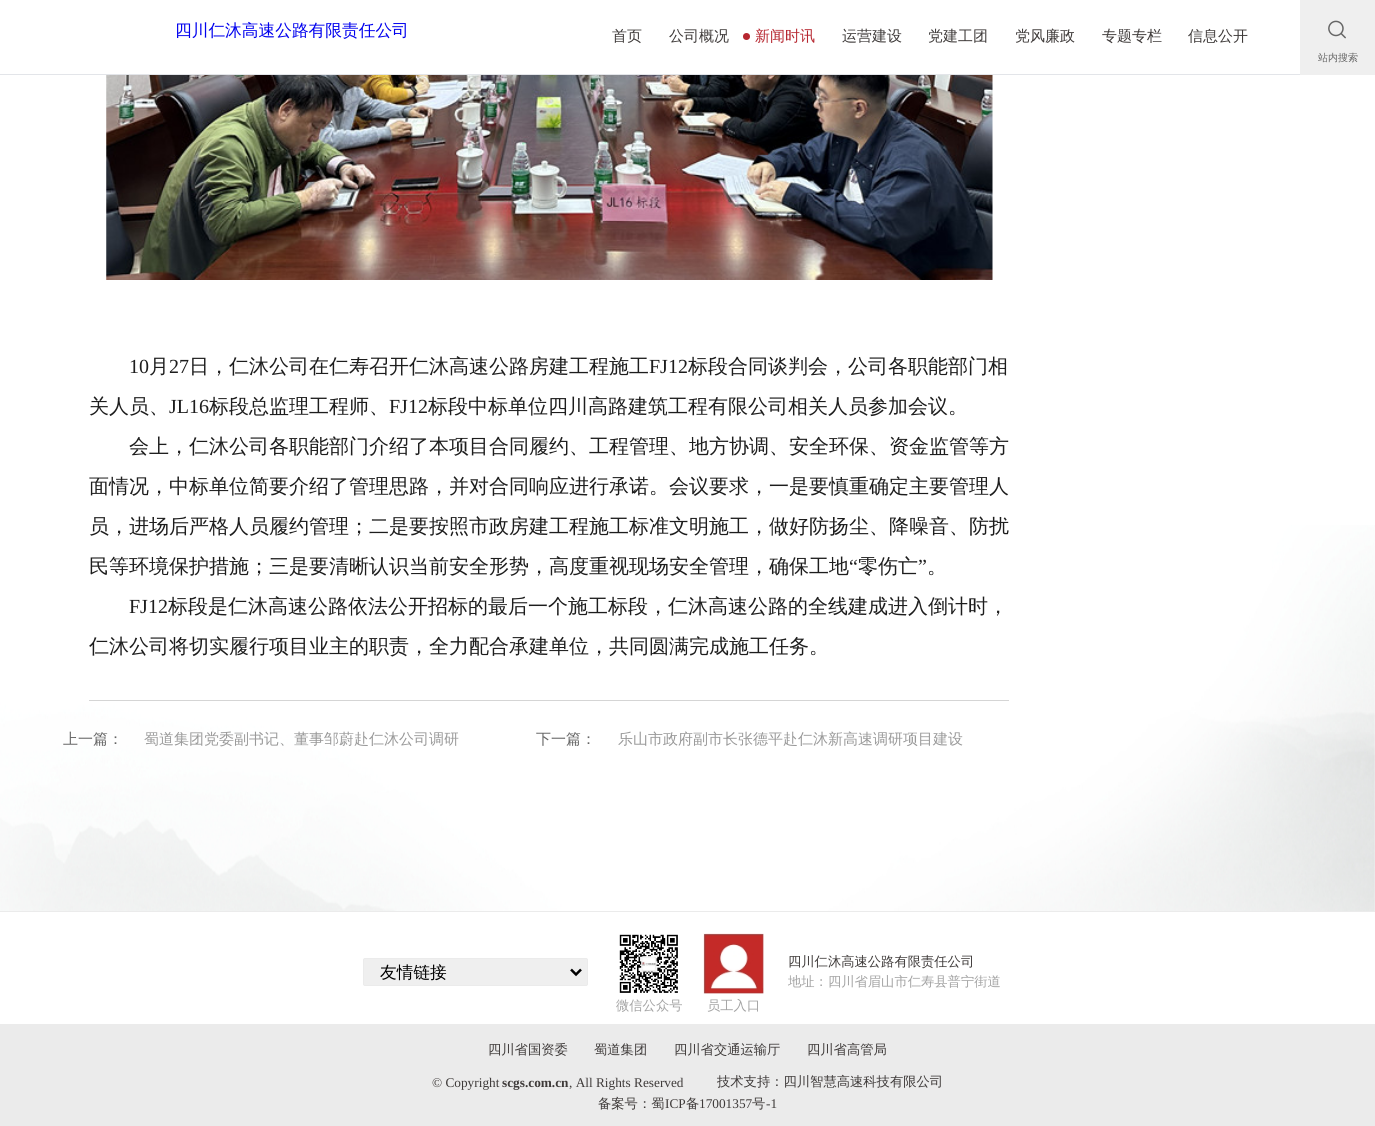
import math
import cairo


def use_color(cr, r, g, b):
  cr.set_source_rgb(r / 255, g / 255, b / 255)

def text(cr, x, y, s, family, size, color, bold=False, italic=False):
  cr.select_font_face(family, cairo.FONT_SLANT_ITALIC if italic else cairo.FONT_SLANT_NORMAL, cairo.FONT_WEIGHT_BOLD if bold else cairo.FONT_WEIGHT_NORMAL)
  cr.set_font_size(size)
  use_color(cr, *color)
  cr.move_to(x, y)
  cr.show_text(s)

def box(cr, x, y, w, h, *color):
  use_color(cr, *color)
  cr.rectangle(x, y, w, h)
  cr.fill()

def round_rect(cr, x, y, w, h, r):
  cr.new_sub_path()
  for i, (u, v) in enumerate([(x + w - r, y + h - r), (x + r, y + h - r), (x + r, y + r), (x + w - r, y + r)]):
    cr.arc(u, v, r, i * math.pi / 2, (i + 1) * math.pi / 2)
  cr.close_path()

def picture(cr, path, x, y, w, h):
  cr.save()
  cr.set_source_surface(cairo.ImageSurface.create_from_png(path), x, y)
  cr.rectangle(x, y, w, h)
  cr.fill()
  cr.restore()

def draw(cr):
  use_color(cr, 255, 255, 255)
  cr.paint()
  picture(cr, "img_01.png", 0, 525, 1375, 386)
  box(cr, 0, 74, 1300, 1, 227, 229, 233)
  use_color(cr, 182, 38, 47)
  cr.arc(746.5, 36.5, 3.5, 0, 2 * math.pi)
  cr.fill()
  box(cr, 1300, 0, 75, 75, 239, 239, 239)
  picture(cr, "img_02.png", 1328, 20, 18, 19)
  box(cr, 89, 700, 920, 1, 213, 213, 213)
  picture(cr, "img_03.png", 106, 75, 887, 205)
  box(cr, 0, 911, 1375, 1, 235, 235, 235)
  use_color(cr, 239, 239, 239)
  round_rect(cr, 363.5, 958.5, 224, 27, 1.5)
  cr.fill_preserve()
  use_color(cr, 235, 235, 235)
  cr.set_line_width(1)
  cr.stroke()
  cr.new_path()
  cr.move_to(571, 969.5)
  cr.line_to(576, 974.5)
  cr.line_to(581, 969.5)
  use_color(cr, 0, 0, 0)
  cr.set_line_width(2.5)
  cr.stroke()
  picture(cr, "img_04.png", 619, 934, 59, 59)
  picture(cr, "img_05.png", 703, 933, 61, 61)
  box(cr, 0, 1024, 1375, 102, 235, 235, 235)
  text(cr, 175, 36, "四川仁沐高速公路有限责任公司", "WenQuanYi Zen Hei Medium", 16.7, (0, 0, 238))
  text(cr, 612, 41, "首页", "WenQuanYi Zen Hei Medium", 15, (62, 58, 57))
  text(cr, 669, 41, "公司概况", "WenQuanYi Zen Hei Medium", 15, (62, 58, 57))
  text(cr, 755, 41, "新闻时讯", "WenQuanYi Zen Hei Medium", 15, (182, 38, 47))
  text(cr, 842, 41, "运营建设", "WenQuanYi Zen Hei Medium", 15, (62, 58, 57))
  text(cr, 928, 41, "党建工团", "WenQuanYi Zen Hei Medium", 15, (62, 58, 57))
  text(cr, 1015, 41, "党风廉政", "WenQuanYi Zen Hei Medium", 15, (62, 58, 57))
  text(cr, 1102, 41, "专题专栏", "WenQuanYi Zen Hei Medium", 15, (62, 58, 57))
  text(cr, 1188, 41, "信息公开", "WenQuanYi Zen Hei Medium", 15, (62, 58, 57))
  text(cr, 1318, 61, "站内搜索", "WenQuanYi Zen Hei Medium", 10, (101, 101, 101))
  text(cr, 129, 373, "10", "Liberation Serif", 20, (29, 29, 29))
  text(cr, 149, 373, "月", "WenQuanYi Zen Hei Medium", 20, (29, 29, 29))
  text(cr, 169, 373, "27", "Liberation Serif", 20, (29, 29, 29))
  text(cr, 189, 373, "日，仁沐公司在仁寿召开仁沐高速公路房建工程施工", "WenQuanYi Zen Hei Medium", 20, (29, 29, 29))
  text(cr, 649, 373, "FJ12", "Liberation Serif", 20, (29, 29, 29))
  text(cr, 688, 373, "标段合同谈判会，公司各职能部门相", "WenQuanYi Zen Hei Medium", 20, (29, 29, 29))
  text(cr, 89, 413, "关人员、", "WenQuanYi Zen Hei Medium", 20, (29, 29, 29))
  text(cr, 169, 413, "JL16", "Liberation Serif", 20, (29, 29, 29))
  text(cr, 209, 413, "标段总监理工程师、", "WenQuanYi Zen Hei Medium", 20, (29, 29, 29))
  text(cr, 389, 413, "FJ12", "Liberation Serif", 20, (29, 29, 29))
  text(cr, 428, 413, "标段中标单位四川高路建筑工程有限公司相关人员参加会议。", "WenQuanYi Zen Hei Medium", 20, (29, 29, 29))
  text(cr, 129, 453, "会上，仁沐公司各职能部门介绍了本项目合同履约、工程管理、地方协调、安全环保、资金监管等方", "WenQuanYi Zen Hei Medium", 20, (29, 29, 29))
  text(cr, 89, 493, "面情况，中标单位简要介绍了管理思路，并对合同响应进行承诺。会议要求，一是要慎重确定主要管理人", "WenQuanYi Zen Hei Medium", 20, (29, 29, 29))
  text(cr, 89, 533, "员，进场后严格人员履约管理；二是要按照市政房建工程施工标准文明施工，做好防扬尘、降噪音、防扰", "WenQuanYi Zen Hei Medium", 20, (29, 29, 29))
  text(cr, 89, 573, "民等环境保护措施；三是要清晰认识当前安全形势，高度重视现场安全管理，确保工地", "WenQuanYi Zen Hei Medium", 20, (29, 29, 29))
  text(cr, 849, 573, "“", "Liberation Serif", 20, (29, 29, 29))
  text(cr, 858, 573, "零伤亡", "WenQuanYi Zen Hei Medium", 20, (29, 29, 29))
  text(cr, 918, 573, "”", "Liberation Serif", 20, (29, 29, 29))
  text(cr, 927, 573, "。", "WenQuanYi Zen Hei Medium", 20, (29, 29, 29))
  text(cr, 129, 613, "FJ12", "Liberation Serif", 20, (29, 29, 29))
  text(cr, 168, 613, "标段是仁沐高速公路依法公开招标的最后一个施工标段，仁沐高速公路的全线建成进入倒计时，", "WenQuanYi Zen Hei Medium", 20, (29, 29, 29))
  text(cr, 89, 653, "仁沐公司将切实履行项目业主的职责，全力配合承建单位，共同圆满完成施工任务。", "WenQuanYi Zen Hei Medium", 20, (29, 29, 29))
  text(cr, 63, 744, "上一篇：", "WenQuanYi Zen Hei Medium", 15, (101, 101, 101))
  text(cr, 144, 744, "蜀道集团党委副书记、董事邹蔚赴仁沐公司调研", "WenQuanYi Zen Hei Medium", 15, (153, 153, 153))
  text(cr, 536, 744, "下一篇：", "WenQuanYi Zen Hei Medium", 15, (101, 101, 101))
  text(cr, 618, 744, "乐山市政府副市长张德平赴仁沐新高速调研项目建设", "WenQuanYi Zen Hei Medium", 15, (153, 153, 153))
  text(cr, 380, 978, "友情链接", "WenQuanYi Zen Hei Medium", 16.7, (0, 0, 0))
  text(cr, 788, 966, "四川仁沐高速公路有限责任公司", "WenQuanYi Zen Hei Medium", 13.3, (62, 58, 57))
  text(cr, 788, 986, "地址：四川省眉山市仁寿县普宁街道", "WenQuanYi Zen Hei Medium", 13.3, (163, 163, 163))
  text(cr, 616, 1010, "微信公众号", "WenQuanYi Zen Hei Medium", 13.3, (163, 163, 163))
  text(cr, 707, 1010, "员工入口", "WenQuanYi Zen Hei Medium", 13.3, (163, 163, 163))
  text(cr, 488, 1054, "四川省国资委", "WenQuanYi Zen Hei Medium", 13.3, (62, 58, 57))
  text(cr, 594, 1054, "蜀道集团", "WenQuanYi Zen Hei Medium", 13.3, (62, 58, 57))
  text(cr, 674, 1054, "四川省交通运输厅", "WenQuanYi Zen Hei Medium", 13.3, (62, 58, 57))
  text(cr, 807, 1054, "四川省高管局", "WenQuanYi Zen Hei Medium", 13.3, (62, 58, 57))
  text(cr, 432, 1087, "© Copyright", "Liberation Serif", 13.3, (62, 58, 57))
  text(cr, 502, 1087, "scgs.com.cn", "Liberation Serif", 13.3, (62, 58, 57), bold=True)
  text(cr, 569, 1087, ", All Rights Reserved", "Liberation Serif", 13.3, (62, 58, 57))
  text(cr, 717, 1086, "技术支持：四川智慧高速科技有限公司", "WenQuanYi Zen Hei Medium", 13.3, (62, 58, 57))
  text(cr, 598, 1108, "备案号：蜀", "WenQuanYi Zen Hei Medium", 13.3, (62, 58, 57))
  text(cr, 665, 1108, "ICP", "Liberation Serif", 13.3, (62, 58, 57))
  text(cr, 686, 1108, "备", "WenQuanYi Zen Hei Medium", 13.3, (62, 58, 57))
  text(cr, 699, 1108, "17001357", "Liberation Serif", 13.3, (62, 58, 57))
  text(cr, 752, 1108, "号", "WenQuanYi Zen Hei Medium", 13.3, (62, 58, 57))
  text(cr, 766, 1108, "-1", "Liberation Serif", 13.3, (62, 58, 57))


surface = cairo.ImageSurface(cairo.FORMAT_RGB24, 1375, 1126)
cr = cairo.Context(surface)
options = cairo.FontOptions()
options.set_hint_metrics(cairo.HINT_METRICS_OFF)
options.set_hint_style(cairo.HINT_STYLE_NONE)
cr.set_font_options(options)
cr.set_miter_limit(4)
draw(cr)
surface.write_to_png("out.png")
